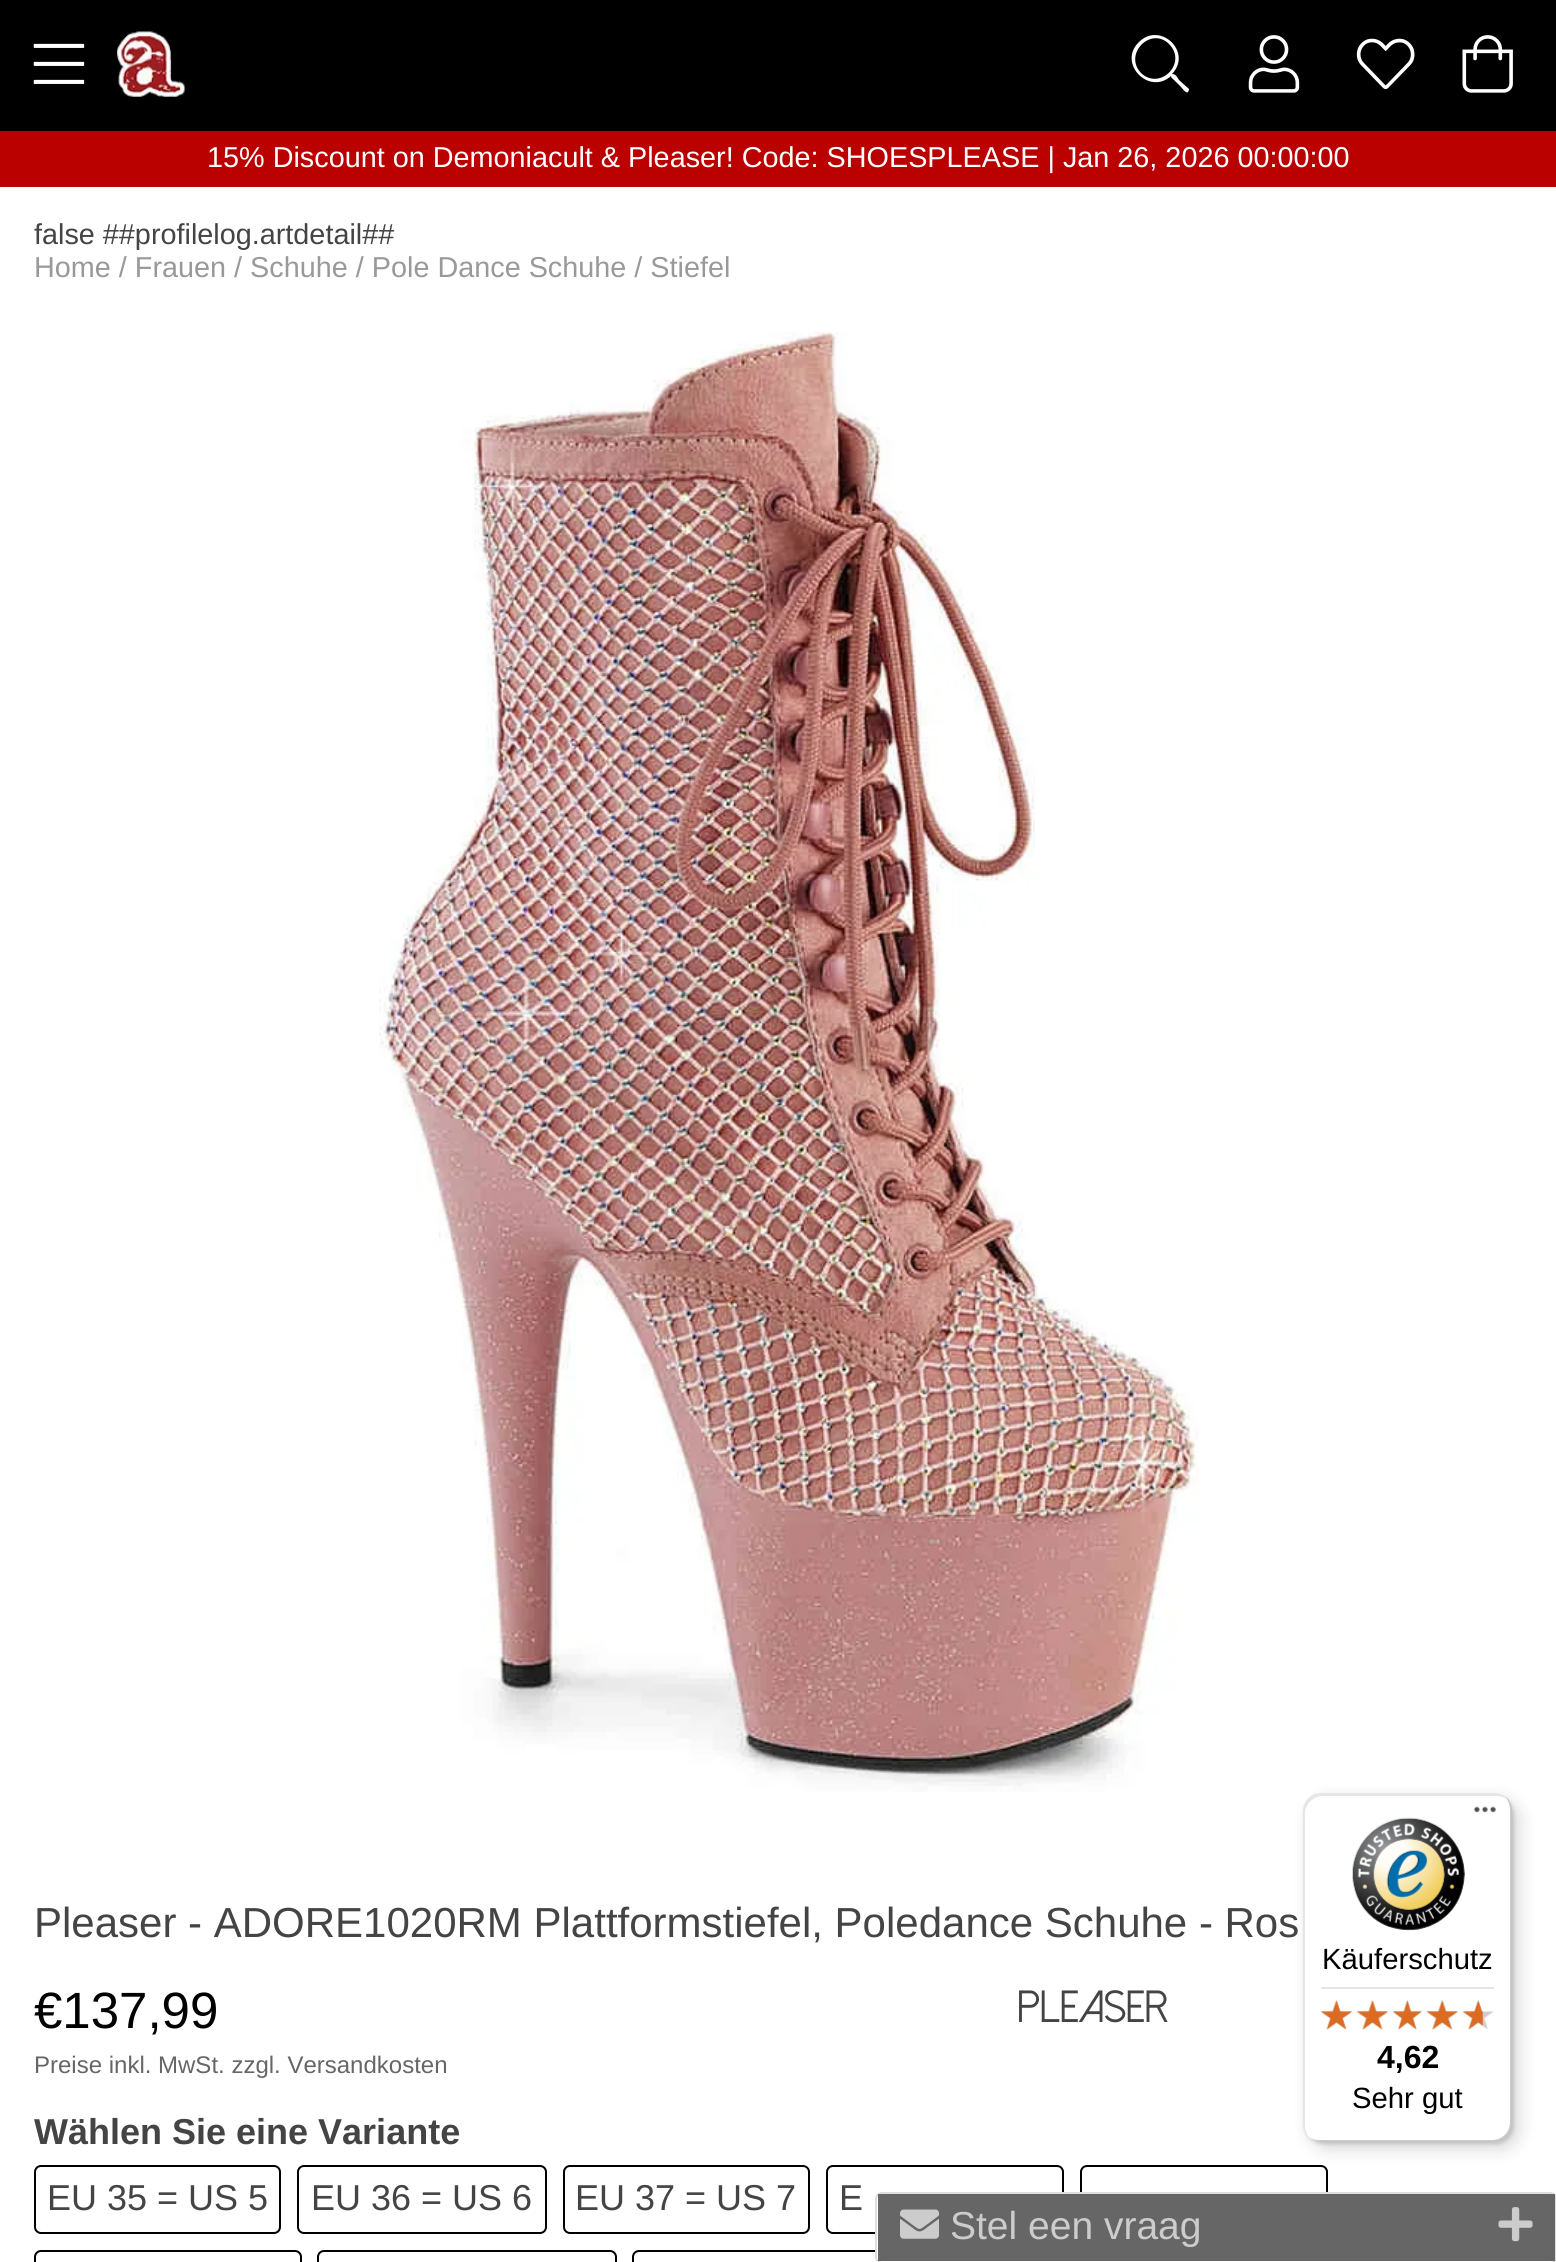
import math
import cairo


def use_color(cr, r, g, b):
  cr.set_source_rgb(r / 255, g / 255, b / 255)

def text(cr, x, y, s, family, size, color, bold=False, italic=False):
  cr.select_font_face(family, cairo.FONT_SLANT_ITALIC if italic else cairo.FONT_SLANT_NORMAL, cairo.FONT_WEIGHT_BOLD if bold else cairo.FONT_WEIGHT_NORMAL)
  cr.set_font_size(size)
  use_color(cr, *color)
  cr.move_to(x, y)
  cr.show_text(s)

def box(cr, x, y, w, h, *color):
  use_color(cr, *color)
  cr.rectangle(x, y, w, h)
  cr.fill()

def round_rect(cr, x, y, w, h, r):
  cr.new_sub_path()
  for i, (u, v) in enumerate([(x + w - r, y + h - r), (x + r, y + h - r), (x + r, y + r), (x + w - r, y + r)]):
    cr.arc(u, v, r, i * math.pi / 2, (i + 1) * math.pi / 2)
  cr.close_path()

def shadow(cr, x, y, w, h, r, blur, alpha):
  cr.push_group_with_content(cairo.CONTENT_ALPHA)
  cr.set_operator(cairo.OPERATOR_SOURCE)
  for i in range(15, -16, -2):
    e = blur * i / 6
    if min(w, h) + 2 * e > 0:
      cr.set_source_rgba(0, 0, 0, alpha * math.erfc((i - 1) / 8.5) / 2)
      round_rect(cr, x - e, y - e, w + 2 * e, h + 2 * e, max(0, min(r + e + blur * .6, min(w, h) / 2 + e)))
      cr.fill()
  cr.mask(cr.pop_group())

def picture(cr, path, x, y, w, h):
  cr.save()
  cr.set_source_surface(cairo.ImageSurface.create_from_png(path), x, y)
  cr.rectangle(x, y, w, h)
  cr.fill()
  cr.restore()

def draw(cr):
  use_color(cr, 255, 255, 255)
  cr.paint()
  box(cr, 0, 0, 1556, 131, 0, 0, 0)
  picture(cr, "img_01.png", 33, 43, 52, 41)
  picture(cr, "img_02.png", 115, 30, 72, 68)
  use_color(cr, 255, 255, 255)
  cr.new_path()
  cr.move_to(1189, 89)
  cr.line_to(1189, 90)
  cr.line_to(1188, 92)
  cr.curve_to(1186, 94, 1182, 88, 1181, 87)
  cr.line_to(1174, 80)
  cr.curve_to(1172, 78, 1171, 78, 1171, 76)
  cr.curve_to(1149, 96, 1117, 63, 1139, 42)
  cr.curve_to(1160, 21, 1193, 52, 1172, 74)
  cr.curve_to(1176, 74, 1177, 77, 1179, 80)
  cr.close_path()
  cr.move_to(1141, 73)
  cr.curve_to(1160, 91, 1188, 63, 1169, 44)
  cr.curve_to(1151, 26, 1123, 54, 1141, 73)
  cr.close_path()
  cr.fill()
  picture(cr, "img_03.png", 1248, 35, 52, 58)
  picture(cr, "img_04.png", 1356, 38, 59, 52)
  picture(cr, "img_05.png", 1462, 35, 51, 58)
  box(cr, 0, 131, 1556, 56, 187, 0, 0)
  picture(cr, "img_06.png", 379, 331, 820, 1461)
  round_rect(cr, 35, 2166, 245, 67, 6)
  use_color(cr, 0, 0, 0)
  cr.stroke()
  round_rect(cr, 298, 2166, 248, 67, 6)
  cr.stroke()
  round_rect(cr, 564, 2166, 245, 67, 6)
  cr.stroke()
  round_rect(cr, 827, 2166, 236, 67, 6)
  cr.stroke()
  round_rect(cr, 1081, 2166, 246, 67, 6)
  cr.stroke()
  round_rect(cr, 35, 2251, 266, 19, 6)
  cr.stroke()
  round_rect(cr, 318, 2251, 298, 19, 6)
  cr.stroke()
  round_rect(cr, 633, 2251, 295, 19, 6)
  cr.stroke()
  use_color(cr, 255, 255, 255)
  round_rect(cr, 876, 2193, 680, 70, 6)
  cr.fill_preserve()
  use_color(cr, 221, 221, 221)
  cr.stroke()
  box(cr, 878, 2194, 677, 67, 102, 102, 102)
  picture(cr, "img_07.png", 900, 2209, 39, 30)
  picture(cr, "img_08.png", 1498, 2207, 35, 35)
  use_color(cr, 0, 0, 0)
  shadow(cr, 1310, 1800, 209, 349, 18, 9, 0.15)
  shadow(cr, 1305, 1796, 209, 348, 18, 2, 0.15)
  use_color(cr, 255, 255, 255)
  round_rect(cr, 1303, 1793, 209, 349, 18)
  cr.fill()
  cr.set_source_rgba(0, 0, 0, 0.1)
  cr.new_path()
  cr.move_to(1323, 1796)
  cr.line_to(1496, 1796)
  cr.curve_to(1502, 1796, 1507, 1798, 1510, 1802)
  cr.curve_to(1507, 1797, 1501, 1793, 1494, 1793)
  cr.line_to(1321, 1793)
  cr.curve_to(1311, 1793, 1303, 1801, 1303, 1811)
  cr.line_to(1303, 2124)
  cr.curve_to(1303, 2129, 1305, 2134, 1309, 2138)
  cr.curve_to(1307, 2134, 1305, 2130, 1305, 2126)
  cr.line_to(1305, 1814)
  cr.curve_to(1305, 1804, 1313, 1796, 1323, 1796)
  cr.close_path()
  cr.fill()
  cr.set_source_rgba(0, 0, 0, 0.2)
  cr.new_path()
  cr.move_to(1309, 2137)
  cr.curve_to(1312, 2140, 1316, 2142, 1321, 2142)
  cr.line_to(1494, 2142)
  cr.curve_to(1504, 2142, 1512, 2134, 1512, 2124)
  cr.line_to(1512, 1811)
  cr.curve_to(1512, 1806, 1510, 1801, 1506, 1797)
  cr.curve_to(1508, 1801, 1510, 1805, 1510, 1809)
  cr.line_to(1510, 2122)
  cr.curve_to(1510, 2132, 1502, 2140, 1492, 2140)
  cr.line_to(1318, 2140)
  cr.curve_to(1315, 2140, 1312, 2139, 1309, 2137)
  cr.close_path()
  cr.fill()
  cr.set_source_rgba(0.196, 0.196, 0.196, 0.2)
  cr.new_path()
  cr.move_to(1312, 2140)
  cr.curve_to(1315, 2141, 1318, 2142, 1321, 2142)
  cr.line_to(1494, 2142)
  cr.curve_to(1504, 2142, 1512, 2134, 1512, 2124)
  cr.line_to(1512, 1811)
  cr.curve_to(1512, 1806, 1510, 1801, 1507, 1798)
  cr.curve_to(1509, 1801, 1511, 1805, 1511, 1810)
  cr.line_to(1511, 2123)
  cr.curve_to(1511, 2133, 1503, 2141, 1493, 2141)
  cr.line_to(1319, 2141)
  cr.curve_to(1317, 2141, 1314, 2141, 1312, 2140)
  cr.close_path()
  cr.fill()
  cr.set_source_rgba(1, 1, 1, 0.3)
  cr.new_path()
  cr.move_to(1308, 2137)
  cr.curve_to(1311, 2140, 1316, 2142, 1321, 2142)
  cr.line_to(1494, 2142)
  cr.curve_to(1504, 2142, 1512, 2134, 1512, 2124)
  cr.line_to(1512, 1811)
  cr.curve_to(1512, 1806, 1510, 1801, 1507, 1798)
  cr.curve_to(1509, 1801, 1511, 1805, 1511, 1810)
  cr.line_to(1511, 2123)
  cr.curve_to(1511, 2133, 1503, 2141, 1493, 2141)
  cr.line_to(1320, 2141)
  cr.curve_to(1315, 2141, 1311, 2139, 1308, 2137)
  cr.close_path()
  cr.fill()
  picture(cr, "img_09.png", 1473, 1806, 23, 7)
  picture(cr, "img_10.png", 1352, 1817, 113, 114)
  box(cr, 1321, 1987, 173, 2, 229, 229, 229)
  picture(cr, "img_16.png", 1321, 2000, 31, 30)
  picture(cr, "img_11.png", 1320, 2000, 32, 30)
  picture(cr, "img_17.png", 1357, 2000, 31, 30)
  picture(cr, "img_12.png", 1356, 2000, 33, 30)
  picture(cr, "img_18.png", 1393, 2000, 29, 29)
  picture(cr, "img_13.png", 1392, 2000, 30, 30)
  picture(cr, "img_19.png", 1426, 2000, 32, 30)
  picture(cr, "img_14.png", 1426, 2000, 32, 30)
  picture(cr, "img_20.png", 1463, 2000, 31, 29)
  picture(cr, "img_15.png", 1462, 2000, 21, 30)
  text(cr, 207, 167, "15% Discount on Demoniacult & Pleaser! Code: SHOESPLEASE | Jan 26, 2026 00:00:00", "Liberation Sans", 28.8, (255, 255, 255))
  text(cr, 34, 244, "false ##profilelog.artdetail##", "Liberation Sans", 28.8, (68, 68, 68))
  text(cr, 34, 277, "Home / Frauen / Schuhe / Pole Dance Schuhe / Stiefel", "Liberation Sans", 28.8, (153, 153, 153))
  text(cr, 34, 1937, "Pleaser - ADORE1020RM Plattformstiefel, Poledance Schuhe - Ros", "Liberation Sans", 42, (68, 68, 68))
  text(cr, 34, 2028, "€137,99", "Liberation Sans", 51, (0, 0, 0))
  text(cr, 34, 2073, "Preise inkl. MwSt. zzgl. Versandkosten", "Liberation Sans", 24, (102, 102, 102))
  text(cr, 1017, 2022, "Pleaser", "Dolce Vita", 45, (68, 68, 68))
  text(cr, 34, 2144, "Wählen Sie eine Variante", "Liberation Sans", 36, (68, 68, 68), bold=True)
  text(cr, 47, 2210, "EU 35 = US 5", "Liberation Sans", 36, (68, 68, 68))
  text(cr, 311, 2210, "EU 36 = US 6", "Liberation Sans", 36, (68, 68, 68))
  text(cr, 575, 2210, "EU 37 = US 7", "Liberation Sans", 36, (68, 68, 68))
  text(cr, 839, 2210, "E", "Liberation Sans", 36, (68, 68, 68))
  text(cr, 950, 2239, "Stel een vraag", "Liberation Sans", 39, (204, 204, 204))
  text(cr, 1322, 1969, "Käuferschutz", "Liberation Sans", 29.25, (0, 0, 0))
  text(cr, 1377, 2068, "4,62", "Liberation Sans", 32, (0, 0, 0), bold=True)
  text(cr, 1352, 2108, "Sehr gut", "Liberation Sans", 29.25, (0, 0, 0))


surface = cairo.ImageSurface(cairo.FORMAT_RGB24, 1556, 2262)
cr = cairo.Context(surface)
options = cairo.FontOptions()
options.set_hint_metrics(cairo.HINT_METRICS_OFF)
options.set_hint_style(cairo.HINT_STYLE_NONE)
cr.set_font_options(options)
cr.set_miter_limit(4)
draw(cr)
surface.write_to_png("out.png")
